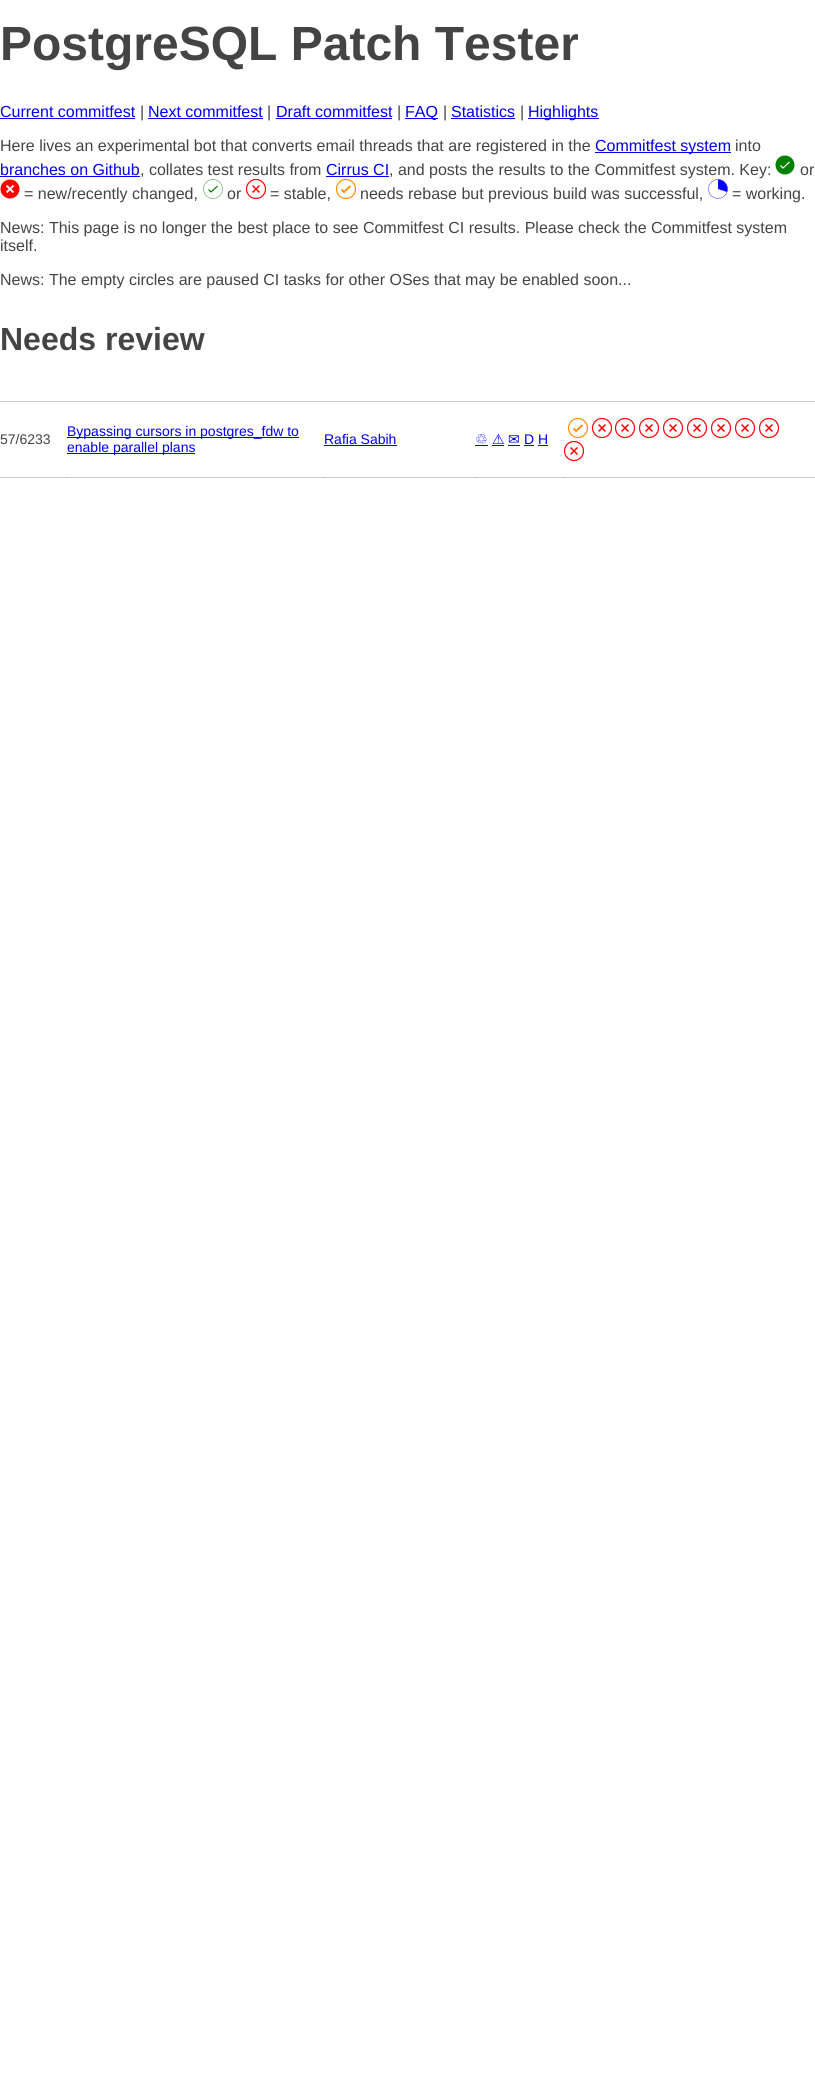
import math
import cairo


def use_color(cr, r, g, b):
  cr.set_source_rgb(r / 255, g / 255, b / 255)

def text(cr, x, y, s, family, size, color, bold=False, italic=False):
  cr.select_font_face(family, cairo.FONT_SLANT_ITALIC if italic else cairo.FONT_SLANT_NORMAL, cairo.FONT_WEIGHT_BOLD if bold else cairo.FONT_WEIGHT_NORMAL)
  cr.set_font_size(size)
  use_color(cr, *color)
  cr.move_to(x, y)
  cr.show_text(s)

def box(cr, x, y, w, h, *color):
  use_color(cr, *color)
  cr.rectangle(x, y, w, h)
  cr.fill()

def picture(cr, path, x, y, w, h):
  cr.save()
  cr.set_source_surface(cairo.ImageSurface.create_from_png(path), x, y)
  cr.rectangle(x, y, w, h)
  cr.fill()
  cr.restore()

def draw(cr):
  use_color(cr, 255, 255, 255)
  cr.paint()
  box(cr, 0, 477, 815, 1, 204, 204, 204)
  box(cr, 66, 477, 1, 1, 163, 163, 163)
  box(cr, 324, 477, 1, 1, 163, 163, 163)
  box(cr, 475, 477, 1, 1, 163, 163, 163)
  box(cr, 0, 118, 135, 1, 0, 0, 238)
  box(cr, 148, 118, 115, 1, 0, 0, 238)
  box(cr, 276, 118, 116, 1, 0, 0, 238)
  box(cr, 405, 118, 33, 1, 0, 0, 238)
  box(cr, 451, 118, 64, 1, 0, 0, 238)
  box(cr, 528, 118, 71, 1, 0, 0, 238)
  box(cr, 595, 152, 136, 1, 0, 0, 238)
  use_color(cr, 0, 128, 0)
  cr.arc(785, 165, 9.5, 0, 2 * math.pi)
  cr.fill()
  box(cr, 0, 176, 140, 1, 0, 0, 238)
  box(cr, 326, 176, 63, 1, 0, 0, 238)
  cr.new_path()
  cr.move_to(780.5, 165.5)
  cr.line_to(783, 168)
  cr.line_to(789.5, 162)
  use_color(cr, 255, 255, 255)
  cr.set_line_width(1.2)
  cr.stroke()
  picture(cr, "img_01.png", 0, 179, 20, 20)
  cr.arc(213, 189, 9.5, 0, 2 * math.pi)
  use_color(cr, 0, 128, 0)
  cr.set_line_width(0.4)
  cr.stroke()
  picture(cr, "img_02.png", 246, 179, 20, 20)
  cr.arc(346, 189, 9.5, 0, 2 * math.pi)
  use_color(cr, 255, 143, 0)
  cr.set_line_width(1.2)
  cr.stroke()
  cr.arc(718, 189, 9.5, 0, 2 * math.pi)
  use_color(cr, 0, 0, 255)
  cr.set_line_width(0.4)
  cr.stroke()
  cr.new_path()
  cr.move_to(208.5, 189.5)
  cr.line_to(211, 192)
  cr.line_to(217.5, 186)
  use_color(cr, 0, 128, 0)
  cr.set_line_width(1.2)
  cr.stroke()
  cr.new_path()
  cr.move_to(341.5, 189.5)
  cr.line_to(344, 192)
  cr.line_to(350.5, 186)
  use_color(cr, 255, 143, 0)
  cr.set_line_width(1.9)
  cr.stroke()
  use_color(cr, 0, 0, 255)
  cr.new_path()
  cr.move_to(718, 189)
  cr.line_to(718, 179.5)
  cr.curve_to(724.5, 179.5, 729, 186, 727, 192)
  cr.close_path()
  cr.fill()
  box(cr, 0, 401, 815, 1, 204, 204, 204)
  box(cr, 67, 437, 232, 1, 0, 0, 238)
  box(cr, 67, 453, 128, 1, 0, 0, 238)
  box(cr, 324, 445, 73, 1, 0, 0, 238)
  box(cr, 475, 445, 13, 1, 0, 0, 238)
  box(cr, 492, 445, 12, 1, 0, 0, 238)
  box(cr, 508, 445, 12, 1, 0, 0, 238)
  box(cr, 524, 445, 10, 1, 0, 0, 238)
  box(cr, 538, 445, 10, 1, 0, 0, 238)
  box(cr, 563, 477, 1, 1, 163, 163, 163)
  cr.arc(578, 428, 9.5, 0, 2 * math.pi)
  use_color(cr, 255, 143, 0)
  cr.set_line_width(1.2)
  cr.stroke()
  picture(cr, "img_02.png", 592, 418, 20, 20)
  picture(cr, "img_02.png", 615, 418, 20, 20)
  picture(cr, "img_02.png", 639, 418, 20, 20)
  picture(cr, "img_02.png", 663, 418, 20, 20)
  picture(cr, "img_02.png", 687, 418, 20, 20)
  picture(cr, "img_02.png", 711, 418, 20, 20)
  picture(cr, "img_02.png", 735, 418, 20, 20)
  picture(cr, "img_02.png", 759, 418, 20, 20)
  cr.new_path()
  cr.move_to(573.5, 428.5)
  cr.line_to(576, 431)
  cr.line_to(582.5, 425)
  cr.set_line_width(1.9)
  cr.stroke()
  picture(cr, "img_02.png", 564, 441, 20, 20)
  text(cr, 0, 60, "PostgreSQL Patch Tester", "Liberation Sans", 48, (68, 68, 68), bold=True)
  text(cr, 0, 117, "Current commitfest", "Liberation Sans", 16, (0, 0, 238))
  text(cr, 140, 117, "|", "Liberation Sans", 16, (68, 68, 68))
  text(cr, 148, 117, "Next commitfest", "Liberation Sans", 16, (0, 0, 238))
  text(cr, 267, 117, "|", "Liberation Sans", 16, (68, 68, 68))
  text(cr, 276, 117, "Draft commitfest", "Liberation Sans", 16, (0, 0, 238))
  text(cr, 397, 117, "|", "Liberation Sans", 16, (68, 68, 68))
  text(cr, 405, 117, "FAQ", "Liberation Sans", 16, (0, 0, 238))
  text(cr, 443, 117, "|", "Liberation Sans", 16, (68, 68, 68))
  text(cr, 451, 117, "Statistics", "Liberation Sans", 16, (0, 0, 238))
  text(cr, 520, 117, "|", "Liberation Sans", 16, (68, 68, 68))
  text(cr, 528, 117, "Highlights", "Liberation Sans", 16, (0, 0, 238))
  text(cr, 0, 151, "Here lives an experimental bot that converts email threads that are registered in the", "Liberation Sans", 16, (68, 68, 68))
  text(cr, 595, 151, "Commitfest system", "Liberation Sans", 16, (0, 0, 238))
  text(cr, 735, 151, "into", "Liberation Sans", 16, (68, 68, 68))
  text(cr, 0, 175, "branches on Github", "Liberation Sans", 16, (0, 0, 238))
  text(cr, 140, 175, ", collates test results from", "Liberation Sans", 16, (68, 68, 68))
  text(cr, 326, 175, "Cirrus CI", "Liberation Sans", 16, (0, 0, 238))
  text(cr, 389, 175, ", and posts the results to the Commitfest system. Key:", "Liberation Sans", 16, (68, 68, 68))
  text(cr, 800, 175, "or", "Liberation Sans", 16, (68, 68, 68))
  text(cr, 24, 199, "= new/recently changed,", "Liberation Sans", 16, (68, 68, 68))
  text(cr, 227, 199, "or", "Liberation Sans", 16, (68, 68, 68))
  text(cr, 270, 199, "= stable,", "Liberation Sans", 16, (68, 68, 68))
  text(cr, 360, 199, "needs rebase but previous build was successful,", "Liberation Sans", 16, (68, 68, 68))
  text(cr, 732, 199, "= working.", "Liberation Sans", 16, (68, 68, 68))
  text(cr, 0, 233, "News: This page is no longer the best place to see Commitfest CI results. Please check the Commitfest system", "Liberation Sans", 16, (68, 68, 68))
  text(cr, 0, 251, "itself.", "Liberation Sans", 16, (68, 68, 68))
  text(cr, 0, 285, "News: The empty circles are paused CI tasks for other OSes that may be enabled soon...", "Liberation Sans", 16, (68, 68, 68))
  text(cr, 0, 350, "Needs review", "Liberation Sans", 32, (68, 68, 68), bold=True)
  text(cr, 0, 444, "57/6233", "Liberation Sans", 14, (68, 68, 68))
  text(cr, 67, 436, "Bypassing cursors in postgres_fdw to", "Liberation Sans", 14, (0, 0, 238))
  text(cr, 67, 452, "enable parallel plans", "Liberation Sans", 14, (0, 0, 238))
  text(cr, 324, 444, "Rafia Sabih", "Liberation Sans", 14, (0, 0, 238))
  text(cr, 475, 444, "♲", "DejaVu Sans", 14, (0, 0, 238))
  text(cr, 492, 444, "⚠", "DejaVu Sans", 14, (0, 0, 238))
  text(cr, 508, 444, "✉", "DejaVu Sans", 14, (0, 0, 238))
  text(cr, 524, 444, "D H", "Liberation Sans", 14, (0, 0, 238))


surface = cairo.ImageSurface(cairo.FORMAT_RGB24, 815, 2092)
cr = cairo.Context(surface)
options = cairo.FontOptions()
options.set_hint_metrics(cairo.HINT_METRICS_OFF)
options.set_hint_style(cairo.HINT_STYLE_NONE)
cr.set_font_options(options)
cr.set_miter_limit(4)
draw(cr)
surface.write_to_png("out.png")
